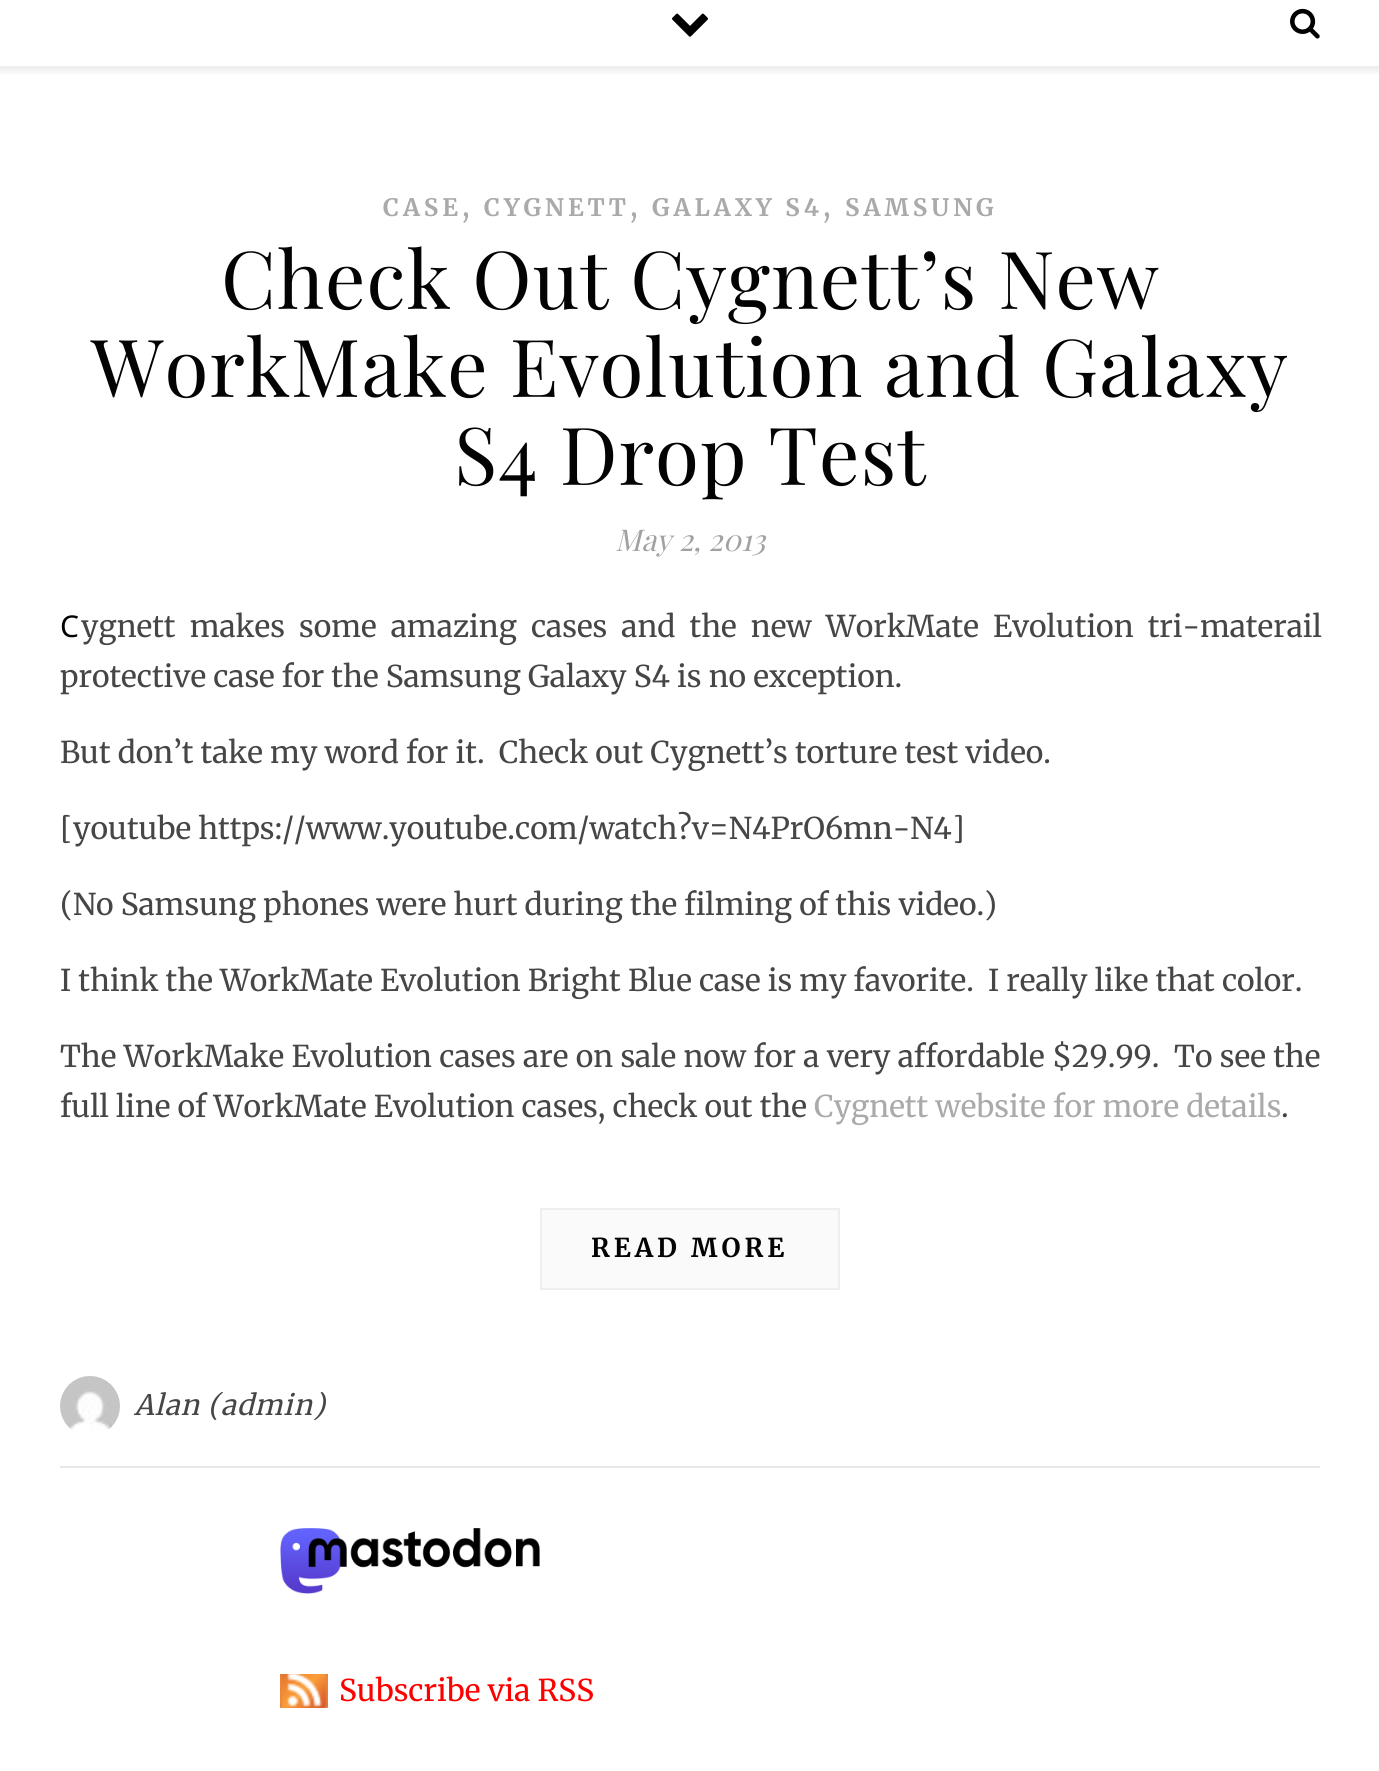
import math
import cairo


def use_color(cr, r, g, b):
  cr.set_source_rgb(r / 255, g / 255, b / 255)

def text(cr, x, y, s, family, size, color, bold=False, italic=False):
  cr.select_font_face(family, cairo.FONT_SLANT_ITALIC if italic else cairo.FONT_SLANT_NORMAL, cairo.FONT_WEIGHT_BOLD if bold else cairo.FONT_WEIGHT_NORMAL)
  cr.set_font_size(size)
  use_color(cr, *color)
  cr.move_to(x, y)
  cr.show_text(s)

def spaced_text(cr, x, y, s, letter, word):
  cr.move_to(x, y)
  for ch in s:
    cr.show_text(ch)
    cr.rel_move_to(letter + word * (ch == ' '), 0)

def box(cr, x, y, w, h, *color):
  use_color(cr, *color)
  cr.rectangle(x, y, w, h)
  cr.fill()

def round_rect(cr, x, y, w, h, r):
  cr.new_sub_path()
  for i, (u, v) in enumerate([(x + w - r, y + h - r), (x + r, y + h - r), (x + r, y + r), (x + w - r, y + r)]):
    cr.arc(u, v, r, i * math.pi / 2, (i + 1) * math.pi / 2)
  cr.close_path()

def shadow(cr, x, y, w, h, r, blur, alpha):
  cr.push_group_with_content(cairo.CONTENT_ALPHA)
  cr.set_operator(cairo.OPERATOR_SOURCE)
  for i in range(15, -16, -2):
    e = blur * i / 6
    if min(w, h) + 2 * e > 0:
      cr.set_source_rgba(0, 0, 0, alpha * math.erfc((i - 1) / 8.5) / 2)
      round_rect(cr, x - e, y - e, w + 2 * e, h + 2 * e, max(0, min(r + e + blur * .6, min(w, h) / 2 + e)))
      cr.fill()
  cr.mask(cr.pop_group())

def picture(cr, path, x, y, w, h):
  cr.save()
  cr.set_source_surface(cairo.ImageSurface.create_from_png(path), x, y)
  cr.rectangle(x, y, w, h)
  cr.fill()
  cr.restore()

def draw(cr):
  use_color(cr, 255, 255, 255)
  cr.paint()
  cr.save()
  cr.rectangle(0, 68, 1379, 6)
  cr.clip()
  use_color(cr, 0, 0, 0)
  shadow(cr, 0, -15, 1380, 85, 0, 5, 0.1)
  cr.restore()
  box(cr, 0, 66, 1379, 2, 238, 238, 238)
  picture(cr, "img_01.png", 672, 13, 36, 24)
  picture(cr, "img_02.png", 1290, 8, 30, 31)
  use_color(cr, 250, 250, 250)
  cr.rectangle(541, 1209, 298, 80)
  cr.fill_preserve()
  use_color(cr, 238, 238, 238)
  cr.stroke()
  box(cr, 60, 1466, 1260, 2, 232, 232, 232)
  picture(cr, "img_03.png", 60, 1376, 60, 54)
  picture(cr, "img_04.png", 280, 1528, 260, 66)
  picture(cr, "img_05.png", 280, 1674, 48, 34)
  cr.select_font_face("Merriweather", cairo.FONT_SLANT_NORMAL, cairo.FONT_WEIGHT_BOLD)
  cr.set_font_size(24)
  use_color(cr, 170, 170, 170)
  spaced_text(cr, 383, 216, "CASE", 4, 0)
  text(cr, 462, 216, ",", "Merriweather", 30, (170, 170, 170))
  cr.select_font_face("Merriweather", cairo.FONT_SLANT_NORMAL, cairo.FONT_WEIGHT_BOLD)
  cr.set_font_size(24)
  spaced_text(cr, 484, 216, "CYGNETT", 4, 0)
  text(cr, 630, 216, ",", "Merriweather", 30, (170, 170, 170))
  cr.select_font_face("Merriweather", cairo.FONT_SLANT_NORMAL, cairo.FONT_WEIGHT_BOLD)
  cr.set_font_size(24)
  spaced_text(cr, 652, 216, "GALAXY S4", 4, 0)
  text(cr, 823, 216, ",", "Merriweather", 30, (170, 170, 170))
  cr.select_font_face("Merriweather", cairo.FONT_SLANT_NORMAL, cairo.FONT_WEIGHT_BOLD)
  cr.set_font_size(24)
  spaced_text(cr, 845, 216, "SAMSUNG", 4, 0)
  cr.select_font_face("Playfair Display")
  cr.set_font_size(80)
  use_color(cr, 3, 3, 3)
  spaced_text(cr, 221, 309, "Check Out Cygnett’s New", 1, 0)
  spaced_text(cr, 91, 397, "WorkMake Evolution and Galaxy", 1, 0)
  spaced_text(cr, 454, 485, "S4 Drop Test", 1, 0)
  text(cr, 615, 551, "May 2, 2013", "Playfair Display", 30, (161, 161, 161), italic=True)
  text(cr, 60, 637, "C", "Noto Sans", 30, (3, 3, 3))
  cr.select_font_face("Merriweather")
  use_color(cr, 70, 70, 70)
  spaced_text(cr, 81, 637, "ygnett makes some amazing cases and the new WorkMate Evolution tri-materail", 0, 7)
  text(cr, 60, 687, "protective case for the Samsung Galaxy S4 is no exception.", "Merriweather", 30, (70, 70, 70))
  text(cr, 60, 763, "But don’t take my word for it.  Check out Cygnett’s torture test video.", "Merriweather", 30, (70, 70, 70))
  text(cr, 60, 839, "[youtube https://www.youtube.com/watch?v=N4PrO6mn-N4]", "Merriweather", 30, (70, 70, 70))
  text(cr, 60, 915, "(No Samsung phones were hurt during the filming of this video.)", "Merriweather", 30, (70, 70, 70))
  text(cr, 60, 991, "I think the WorkMate Evolution Bright Blue case is my favorite.  I really like that color.", "Merriweather", 30, (70, 70, 70))
  spaced_text(cr, 60, 1067, "The WorkMake Evolution cases are on sale now for a very affordable $29.99.  To see the", 0, 0.25)
  text(cr, 60, 1117, "full line of WorkMate Evolution cases, check out the", "Merriweather", 30, (70, 70, 70))
  text(cr, 814, 1117, "Cygnett website for more details", "Merriweather", 30, (170, 170, 170))
  text(cr, 1281, 1117, ".", "Merriweather", 30, (70, 70, 70))
  cr.select_font_face("Merriweather", cairo.FONT_SLANT_NORMAL, cairo.FONT_WEIGHT_BOLD)
  cr.set_font_size(26)
  use_color(cr, 3, 3, 3)
  spaced_text(cr, 591, 1257, "READ MORE", 4, 0)
  cr.select_font_face("Merriweather", cairo.FONT_SLANT_ITALIC)
  cr.set_font_size(28)
  use_color(cr, 70, 70, 70)
  spaced_text(cr, 134, 1415, "Alan (admin)", 1, 0)
  text(cr, 339, 1701, "Subscribe via RSS", "Merriweather", 30, (255, 0, 0))


surface = cairo.ImageSurface(cairo.FORMAT_RGB24, 1379, 1771)
cr = cairo.Context(surface)
options = cairo.FontOptions()
options.set_hint_metrics(cairo.HINT_METRICS_OFF)
options.set_hint_style(cairo.HINT_STYLE_NONE)
cr.set_font_options(options)
cr.set_miter_limit(4)
draw(cr)
surface.write_to_png("out.png")
